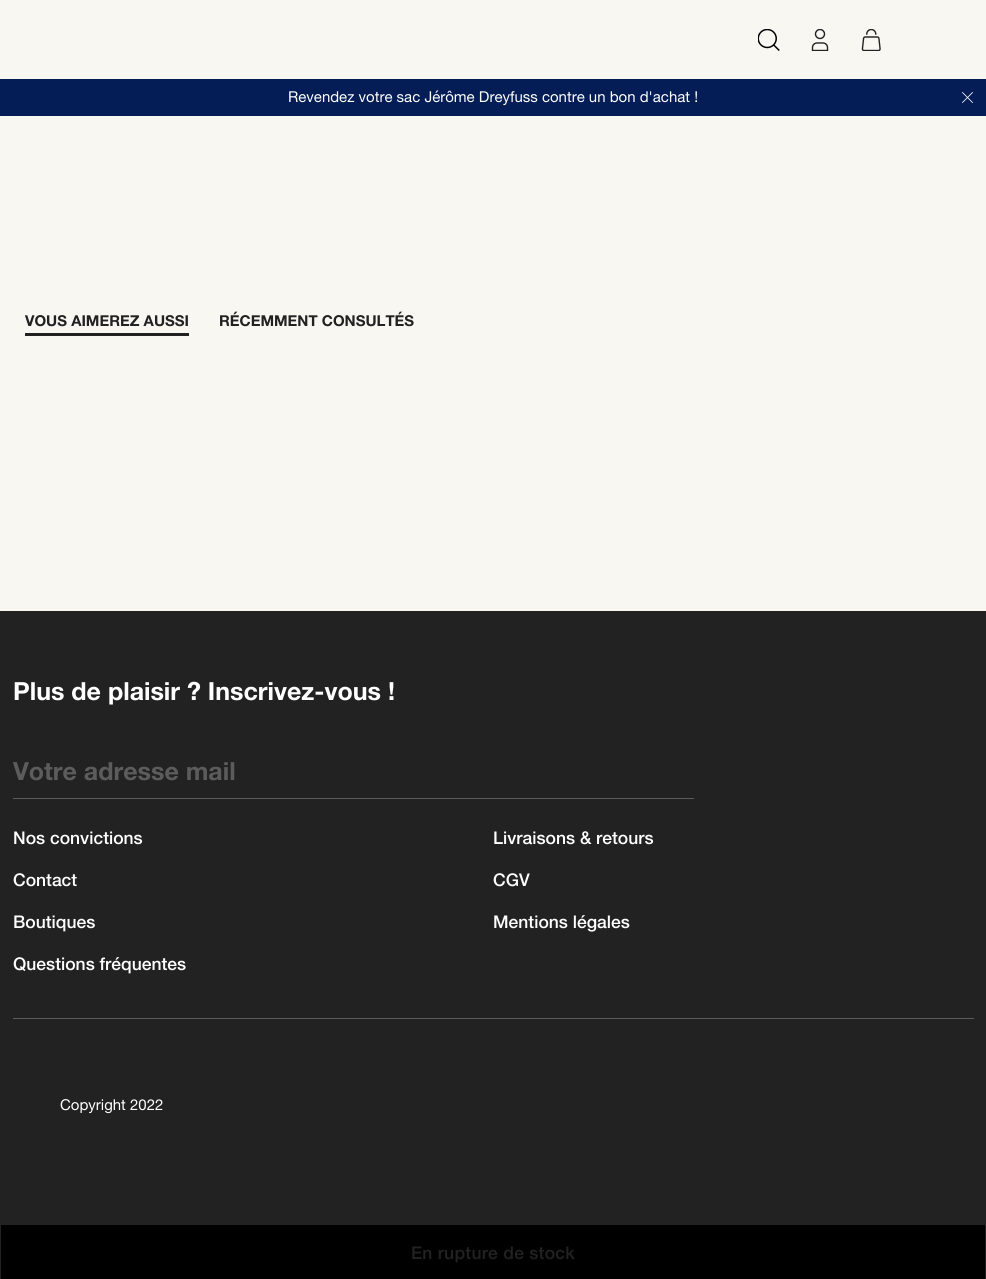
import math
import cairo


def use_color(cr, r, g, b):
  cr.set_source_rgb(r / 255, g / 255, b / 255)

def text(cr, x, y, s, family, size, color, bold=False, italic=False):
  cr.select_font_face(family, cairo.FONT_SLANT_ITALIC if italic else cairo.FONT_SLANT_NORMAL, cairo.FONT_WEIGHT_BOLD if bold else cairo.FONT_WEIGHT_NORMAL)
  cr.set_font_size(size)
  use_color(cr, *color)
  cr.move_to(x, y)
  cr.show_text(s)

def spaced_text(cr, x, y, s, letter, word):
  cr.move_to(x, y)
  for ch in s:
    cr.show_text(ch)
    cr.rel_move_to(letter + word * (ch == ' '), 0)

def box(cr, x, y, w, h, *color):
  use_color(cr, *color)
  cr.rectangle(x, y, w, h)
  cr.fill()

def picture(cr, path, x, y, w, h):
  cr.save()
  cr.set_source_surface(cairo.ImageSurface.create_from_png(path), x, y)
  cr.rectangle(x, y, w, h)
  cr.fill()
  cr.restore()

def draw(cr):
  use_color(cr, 249, 247, 241)
  cr.paint()
  picture(cr, "img_01.png", 758, 29, 22, 22)
  picture(cr, "img_02.png", 811, 29, 18, 22)
  picture(cr, "img_03.png", 861, 29, 20, 22)
  box(cr, 0, 79, 986, 37, 4, 29, 86)
  picture(cr, "img_04.png", 962, 92, 11, 11)
  box(cr, 25, 333, 164, 3, 34, 34, 34)
  use_color(cr, 0, 0, 0)
  cr.rectangle(0.5, 1224.5, 985, 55)
  cr.fill_preserve()
  use_color(cr, 34, 34, 34)
  cr.set_line_width(1)
  cr.stroke()
  box(cr, 0, 611, 986, 613, 34, 34, 34)
  box(cr, 13, 798, 681, 1, 92, 92, 92)
  box(cr, 13, 1018, 961, 1, 92, 92, 92)
  text(cr, 288, 102, "Revendez votre sac Jérôme Dreyfuss contre un bon d'achat !", "Helvetica Neue", 15, (255, 255, 255))
  text(cr, 25, 326, "VOUS AIMEREZ AUSSI", "Helvetica Neue", 15, (34, 34, 34), bold=True)
  text(cr, 219, 326, "RÉCEMMENT CONSULTÉS", "Helvetica Neue", 15, (34, 34, 34), bold=True)
  cr.select_font_face("Helvetica Neue Medium")
  cr.set_font_size(17.5)
  spaced_text(cr, 411, 1259, "En rupture de stock", 0.25, 0)
  text(cr, 13, 700, "Plus de plaisir ? Inscrivez-vous !", "Helvetica Neue", 25, (255, 255, 255), bold=True)
  text(cr, 13, 780, "Votre adresse mail", "Helvetica Neue", 25, (92, 92, 92), bold=True)
  text(cr, 13, 844, "Nos convictions", "Helvetica Neue Medium", 17.5, (255, 255, 255))
  text(cr, 13, 886, "Contact", "Helvetica Neue Medium", 17.5, (255, 255, 255))
  text(cr, 13, 928, "Boutiques", "Helvetica Neue Medium", 17.5, (255, 255, 255))
  text(cr, 13, 970, "Questions fréquentes", "Helvetica Neue Medium", 17.5, (255, 255, 255))
  text(cr, 493, 844, "Livraisons & retours", "Helvetica Neue Medium", 17.5, (255, 255, 255))
  text(cr, 493, 886, "CGV", "Helvetica Neue Medium", 17.5, (255, 255, 255))
  text(cr, 493, 928, "Mentions légales", "Helvetica Neue Medium", 17.5, (255, 255, 255))
  text(cr, 60, 1110, "Copyright 2022", "Helvetica Neue", 15, (255, 255, 255))


surface = cairo.ImageSurface(cairo.FORMAT_RGB24, 986, 1279)
cr = cairo.Context(surface)
options = cairo.FontOptions()
options.set_hint_metrics(cairo.HINT_METRICS_OFF)
options.set_hint_style(cairo.HINT_STYLE_NONE)
cr.set_font_options(options)
cr.set_miter_limit(4)
draw(cr)
surface.write_to_png("out.png")
